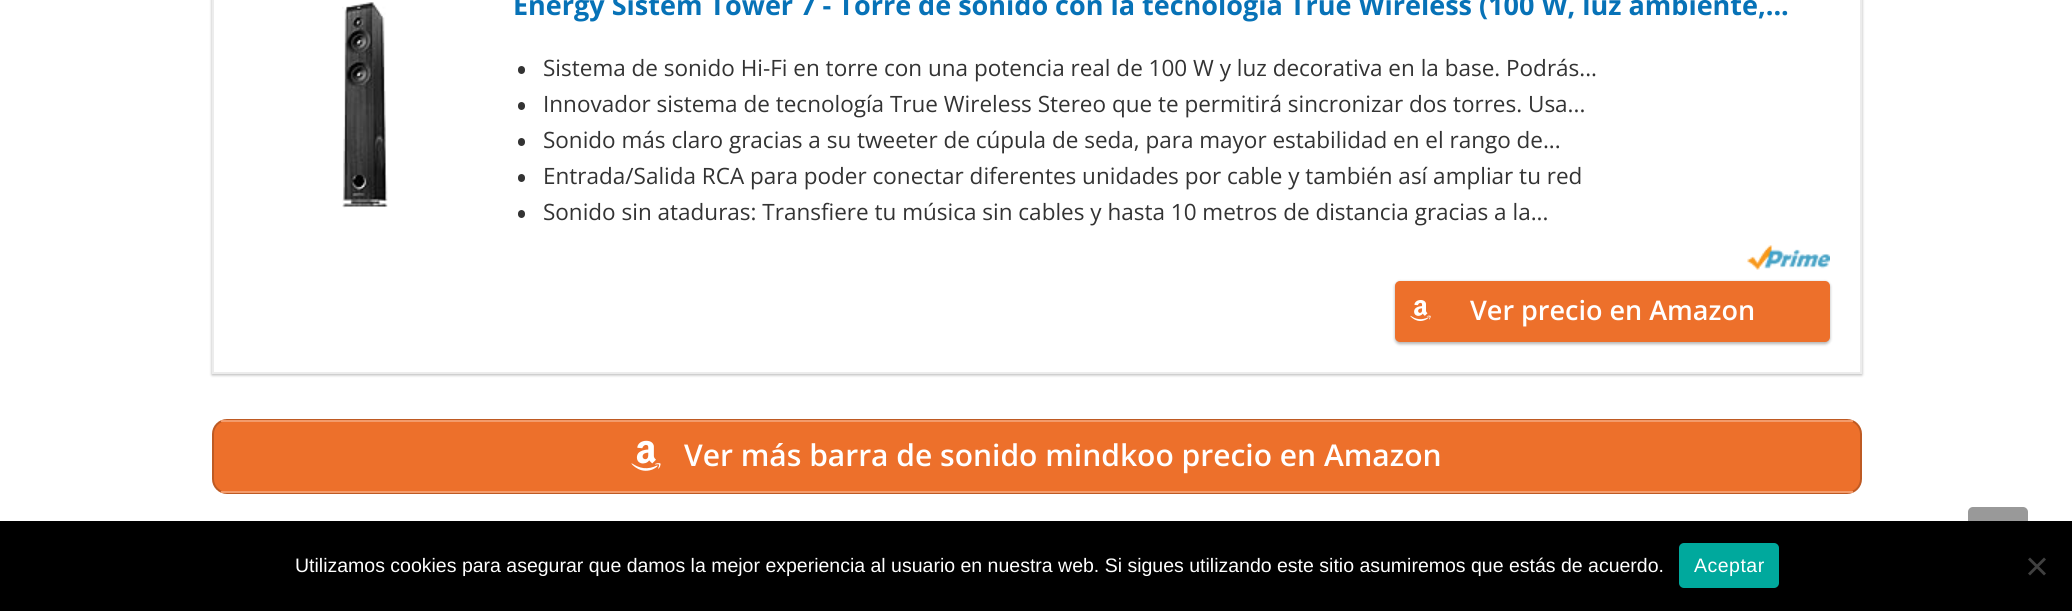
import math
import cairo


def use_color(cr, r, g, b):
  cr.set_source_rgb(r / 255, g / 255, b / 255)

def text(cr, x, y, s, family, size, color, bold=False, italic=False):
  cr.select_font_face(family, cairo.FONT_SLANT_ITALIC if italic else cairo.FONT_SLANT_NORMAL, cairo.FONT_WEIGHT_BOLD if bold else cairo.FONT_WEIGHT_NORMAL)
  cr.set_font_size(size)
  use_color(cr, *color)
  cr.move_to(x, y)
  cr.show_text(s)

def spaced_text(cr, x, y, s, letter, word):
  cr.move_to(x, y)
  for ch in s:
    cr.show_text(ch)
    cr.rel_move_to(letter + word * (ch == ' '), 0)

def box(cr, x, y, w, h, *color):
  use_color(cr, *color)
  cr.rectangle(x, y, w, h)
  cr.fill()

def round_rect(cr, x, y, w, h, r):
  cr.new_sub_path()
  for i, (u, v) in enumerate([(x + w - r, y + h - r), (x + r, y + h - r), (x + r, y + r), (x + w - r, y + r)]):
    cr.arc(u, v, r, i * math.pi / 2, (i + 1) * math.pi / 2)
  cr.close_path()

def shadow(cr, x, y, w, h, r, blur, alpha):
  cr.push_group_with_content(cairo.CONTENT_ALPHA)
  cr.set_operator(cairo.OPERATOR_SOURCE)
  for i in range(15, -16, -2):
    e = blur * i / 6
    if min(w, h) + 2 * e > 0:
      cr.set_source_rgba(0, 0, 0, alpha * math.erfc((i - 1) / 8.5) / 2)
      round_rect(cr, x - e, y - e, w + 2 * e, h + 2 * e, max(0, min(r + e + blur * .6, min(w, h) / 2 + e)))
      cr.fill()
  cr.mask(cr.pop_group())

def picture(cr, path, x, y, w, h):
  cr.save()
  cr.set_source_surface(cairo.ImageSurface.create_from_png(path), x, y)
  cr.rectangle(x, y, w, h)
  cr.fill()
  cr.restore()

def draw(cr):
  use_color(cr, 255, 255, 255)
  cr.paint()
  use_color(cr, 0, 0, 0)
  shadow(cr, 212, -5, 1650, 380, 0, 1.5, 0.3)
  use_color(cr, 255, 255, 255)
  cr.rectangle(213, -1, 1648, 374)
  cr.fill_preserve()
  use_color(cr, 236, 236, 236)
  cr.stroke()
  picture(cr, "img_01.png", 342, 2, 46, 206)
  use_color(cr, 51, 51, 51)
  round_rect(cr, 518, 66, 7, 8, 3.5)
  cr.fill()
  round_rect(cr, 518, 102, 7, 8, 3.5)
  cr.fill()
  round_rect(cr, 518, 138, 7, 8, 3.5)
  cr.fill()
  round_rect(cr, 518, 174, 7, 8, 3.5)
  cr.fill()
  round_rect(cr, 518, 210, 7, 8, 3.5)
  cr.fill()
  picture(cr, "img_02.png", 1747, 245, 83, 25)
  use_color(cr, 0, 0, 0)
  shadow(cr, 1395, 282, 435, 62, 5, 1.5, 0.3)
  use_color(cr, 237, 112, 43)
  round_rect(cr, 1396, 282, 433, 59, 4)
  cr.fill_preserve()
  cr.stroke()
  picture(cr, "img_03.png", 1410, 300, 21, 21)
  round_rect(cr, 213, 420, 1648, 73, 14)
  cr.fill_preserve()
  use_color(cr, 190, 90, 35)
  cr.stroke()
  box(cr, 221, 420, 1632, 2, 243, 155, 107)
  box(cr, 221, 491, 1632, 2, 243, 155, 107)
  picture(cr, "img_04.png", 631, 440, 30, 31)
  use_color(cr, 153, 153, 153)
  round_rect(cr, 1968, 507, 60, 60, 5)
  cr.fill()
  box(cr, 0, 521, 2072, 90, 0, 0, 0)
  use_color(cr, 0, 169, 157)
  round_rect(cr, 1679, 543, 100, 45, 5)
  cr.fill()
  use_color(cr, 64, 64, 64)
  cr.new_path()
  cr.move_to(2044, 557.5)
  cr.line_to(2046, 559.5)
  cr.line_to(2030, 575.5)
  cr.line_to(2028, 573.5)
  cr.close_path()
  cr.fill()
  cr.new_path()
  cr.move_to(2028, 559.5)
  cr.line_to(2030, 557.5)
  cr.line_to(2046, 573.5)
  cr.line_to(2044, 575.5)
  cr.close_path()
  cr.fill()
  text(cr, 513, 15, "Energy Sistem Tower 7 - Torre de sonido con la tecnologia True Wireless (100 W, luz ambiente,...", "Open Sans", 27, (7, 114, 183), bold=True)
  text(cr, 543, 76, "Sistema de sonido Hi-Fi en torre con una potencia real de 100 W y luz decorativa en la base. Podrás...", "Open Sans", 22.5, (51, 51, 51))
  text(cr, 543, 112, "Innovador sistema de tecnología True Wireless Stereo que te permitirá sincronizar dos torres. Usa...", "Open Sans", 22.5, (51, 51, 51))
  text(cr, 543, 148, "Sonido más claro gracias a su tweeter de cúpula de seda, para mayor estabilidad en el rango de...", "Open Sans", 22.5, (51, 51, 51))
  text(cr, 543, 184, "Entrada/Salida RCA para poder conectar diferentes unidades por cable y también así ampliar tu red", "Open Sans", 22.5, (51, 51, 51))
  text(cr, 543, 220, "Sonido sin ataduras: Transfiere tu música sin cables y hasta 10 metros de distancia gracias a la...", "Open Sans", 22.5, (51, 51, 51))
  text(cr, 1470, 320, "Ver precio en Amazon", "Open Sans SemiBold", 27, (255, 255, 255))
  text(cr, 684, 466, "Ver más barra de sonido mindkoo precio en Amazon", "Open Sans SemiBold", 30, (255, 255, 255))
  text(cr, 295, 572, "Utilizamos cookies para asegurar que damos la mejor experiencia al usuario en nuestra web. Si sigues utilizando este sitio asumiremos que estás de acuerdo.", "Liberation Sans", 19.5, (255, 255, 255))
  spaced_text(cr, 1694, 572, "Aceptar", 0.5, 0)


surface = cairo.ImageSurface(cairo.FORMAT_RGB24, 2072, 611)
cr = cairo.Context(surface)
options = cairo.FontOptions()
options.set_hint_metrics(cairo.HINT_METRICS_OFF)
options.set_hint_style(cairo.HINT_STYLE_NONE)
cr.set_font_options(options)
cr.set_miter_limit(4)
draw(cr)
surface.write_to_png("out.png")
